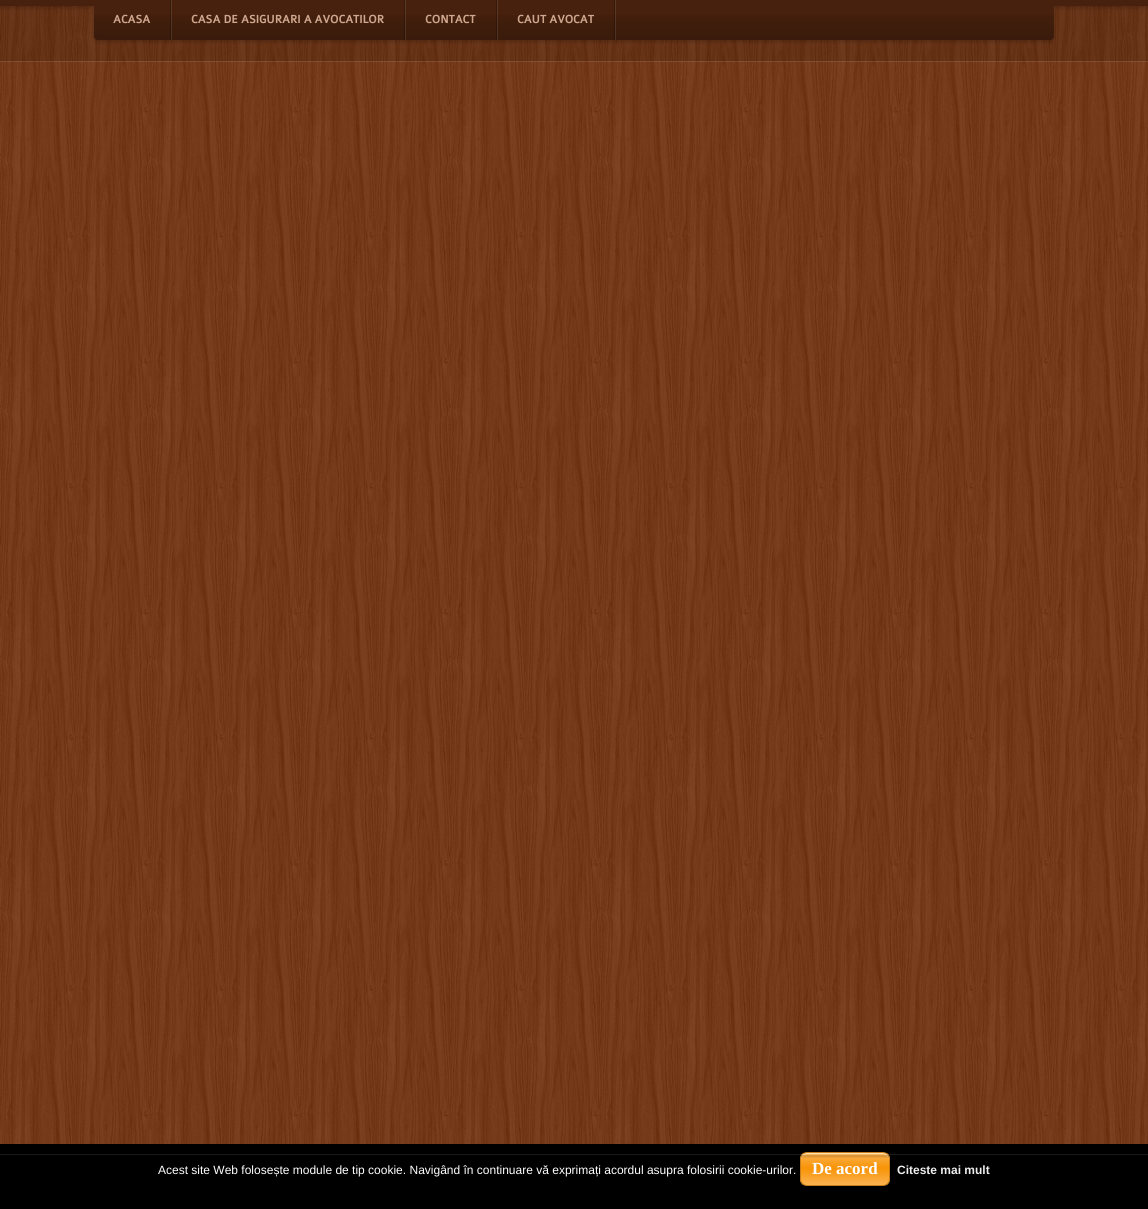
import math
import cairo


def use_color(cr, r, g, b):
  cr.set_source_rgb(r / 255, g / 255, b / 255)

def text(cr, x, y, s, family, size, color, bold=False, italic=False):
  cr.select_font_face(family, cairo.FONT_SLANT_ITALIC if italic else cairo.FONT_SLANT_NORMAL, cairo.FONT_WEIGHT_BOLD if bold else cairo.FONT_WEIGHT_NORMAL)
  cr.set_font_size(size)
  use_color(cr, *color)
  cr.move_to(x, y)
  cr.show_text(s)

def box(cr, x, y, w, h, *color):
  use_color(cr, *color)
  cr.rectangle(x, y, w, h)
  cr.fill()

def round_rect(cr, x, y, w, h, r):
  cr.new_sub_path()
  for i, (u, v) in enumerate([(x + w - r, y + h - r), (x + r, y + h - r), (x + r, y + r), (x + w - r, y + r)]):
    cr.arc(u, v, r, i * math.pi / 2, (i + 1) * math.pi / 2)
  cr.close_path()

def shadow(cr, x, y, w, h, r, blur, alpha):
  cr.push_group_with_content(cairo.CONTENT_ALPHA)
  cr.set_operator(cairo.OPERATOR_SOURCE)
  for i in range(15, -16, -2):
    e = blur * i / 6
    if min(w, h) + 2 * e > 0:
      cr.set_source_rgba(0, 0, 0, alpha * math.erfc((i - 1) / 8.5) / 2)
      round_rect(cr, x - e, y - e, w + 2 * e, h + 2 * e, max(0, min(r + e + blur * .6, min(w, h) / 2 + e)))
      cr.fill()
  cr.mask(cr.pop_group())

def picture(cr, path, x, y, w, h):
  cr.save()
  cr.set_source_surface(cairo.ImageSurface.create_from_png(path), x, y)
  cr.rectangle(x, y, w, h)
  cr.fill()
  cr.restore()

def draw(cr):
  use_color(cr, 107, 40, 2)
  cr.paint()
  picture(cr, "img_01.png", 0, 6, 1148, 1138)
  box(cr, 0, 1144, 1148, 65, 0, 0, 0)
  cr.save()
  round_rect(cr, 800, 1152, 90, 34, 7)
  cr.clip()
  gradient = cairo.LinearGradient(845, 1153, 845, 1185)
  gradient.add_color_stop_rgba(0, 0.984, 0.706, 0.314, 1)
  gradient.add_color_stop_rgba(0.47, 0.973, 0.576, 0.024, 1)
  gradient.add_color_stop_rgba(1, 0.984, 0.706, 0.314, 1)
  cr.set_source(gradient)
  cr.rectangle(800, 1153, 90, 32)
  cr.fill()
  cr.restore()
  use_color(cr, 255, 224, 181)
  cr.new_path()
  cr.move_to(807, 1154)
  cr.line_to(883, 1154)
  cr.curve_to(886, 1154, 889, 1157, 889, 1160)
  cr.curve_to(889, 1150, 877, 1153, 870, 1153)
  cr.line_to(820, 1153)
  cr.curve_to(813, 1153, 801, 1150, 801, 1160)
  cr.curve_to(801, 1157, 804, 1154, 807, 1154)
  cr.close_path()
  cr.fill()
  round_rect(cr, 800.5, 1152.5, 89, 33, 6.5)
  use_color(cr, 201, 126, 28)
  cr.set_line_width(1)
  cr.stroke()
  picture(cr, "img_02.png", 0, 1154, 1148, 4)
  picture(cr, "img_03.png", 0, 6, 1148, 56)
  use_color(cr, 0, 0, 0)
  shadow(cr, 0, 2, 1148, 6, 0, 2, 0.2)
  box(cr, 0, 0, 1148, 6, 71, 33, 13)
  use_color(cr, 0, 0, 0)
  shadow(cr, 94, 8, 960, 34, 4, 2, 0.2)
  use_color(cr, 71, 33, 13)
  cr.new_path()
  cr.move_to(94, 6)
  cr.line_to(1054, 6)
  cr.line_to(1054, 36)
  cr.curve_to(1054, 38, 1052, 40, 1050, 40)
  cr.line_to(98, 40)
  cr.curve_to(96, 40, 94, 38, 94, 36)
  cr.close_path()
  cr.fill()
  picture(cr, "img_04.png", 94, 15, 960, 25)
  picture(cr, "img_05.png", 170, 0, 2, 40)
  picture(cr, "img_05.png", 404, 0, 2, 40)
  picture(cr, "img_05.png", 496, 0, 2, 40)
  picture(cr, "img_05.png", 614, 0, 2, 40)
  text(cr, 113, 23, "ACASA", "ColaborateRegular", 12, (207, 166, 142), bold=True)
  text(cr, 191, 23, "CASA DE ASIGURARI A AVOCATILOR", "ColaborateRegular", 12, (207, 166, 142), bold=True)
  text(cr, 425, 23, "CONTACT", "ColaborateRegular", 12, (207, 166, 142), bold=True)
  text(cr, 517, 23, "CAUT AVOCAT", "ColaborateRegular", 12, (207, 166, 142), bold=True)
  text(cr, 158, 1174, "Acest site Web folosește module de tip cookie. Navigând în continuare vă exprimați acordul asupra folosirii cookie-urilor.", "Liberation Sans", 12, (255, 255, 255))
  text(cr, 812, 1174, "De acord", "Liberation Serif", 17, (255, 255, 255), bold=True)
  text(cr, 897, 1174, "Citeste mai mult", "Liberation Sans", 12, (238, 238, 238), bold=True)


surface = cairo.ImageSurface(cairo.FORMAT_RGB24, 1148, 1209)
cr = cairo.Context(surface)
options = cairo.FontOptions()
options.set_hint_metrics(cairo.HINT_METRICS_OFF)
options.set_hint_style(cairo.HINT_STYLE_NONE)
cr.set_font_options(options)
cr.set_miter_limit(4)
draw(cr)
surface.write_to_png("out.png")
